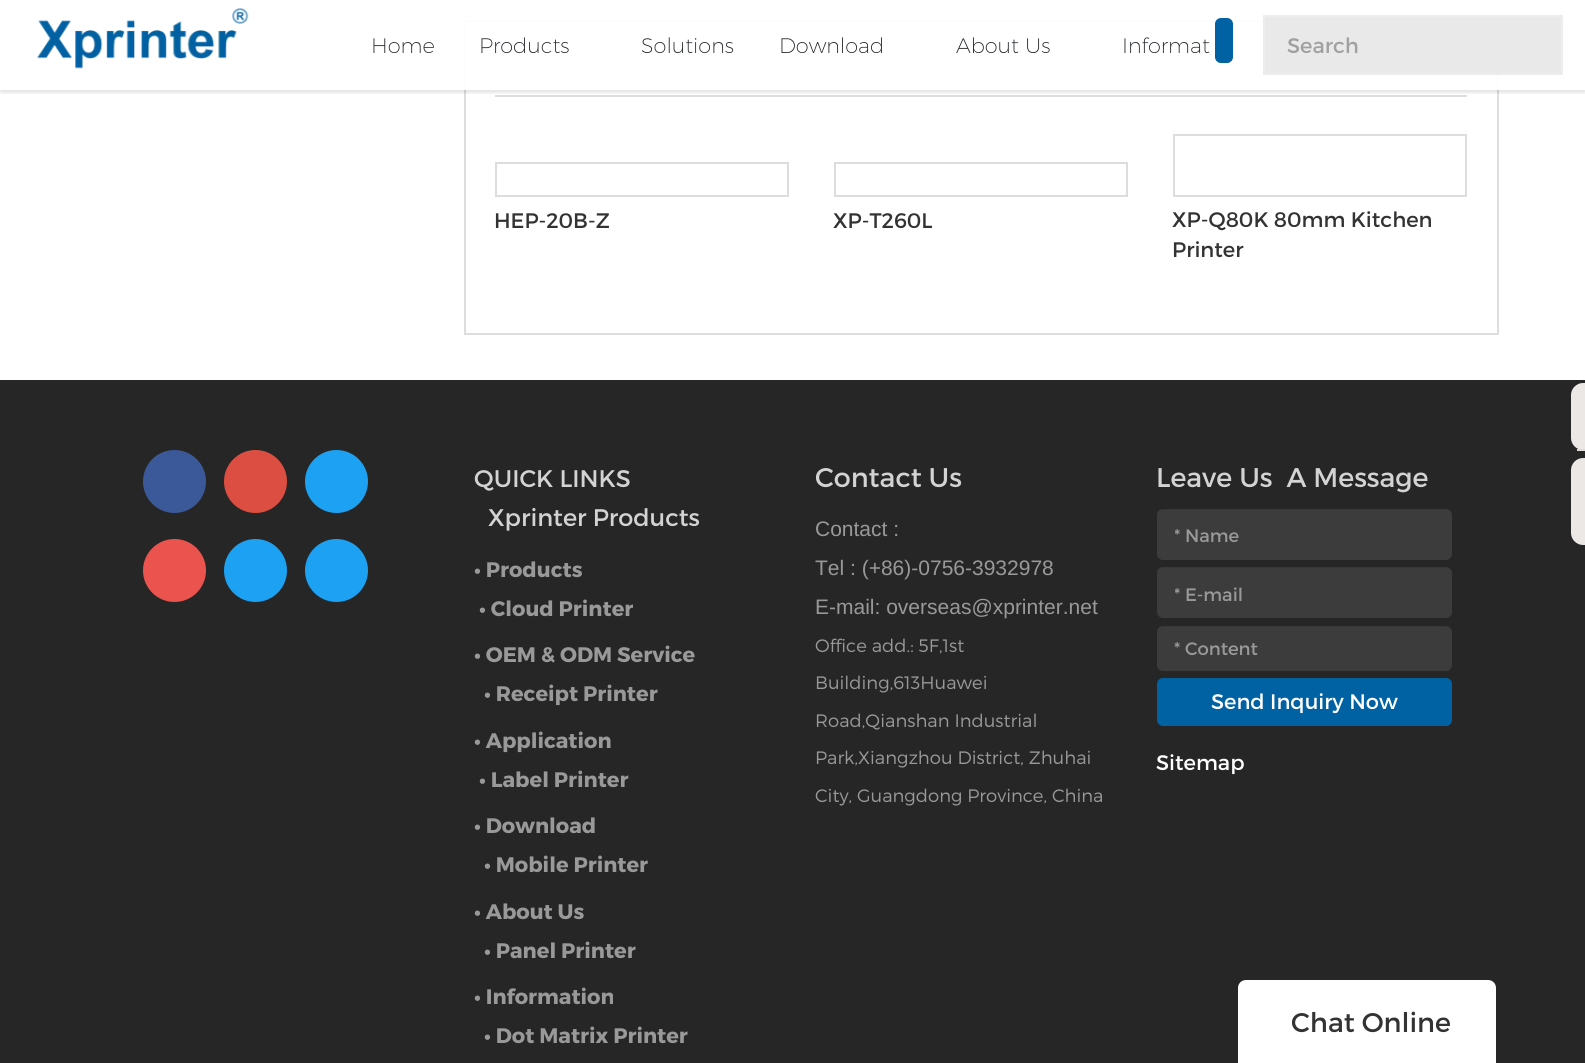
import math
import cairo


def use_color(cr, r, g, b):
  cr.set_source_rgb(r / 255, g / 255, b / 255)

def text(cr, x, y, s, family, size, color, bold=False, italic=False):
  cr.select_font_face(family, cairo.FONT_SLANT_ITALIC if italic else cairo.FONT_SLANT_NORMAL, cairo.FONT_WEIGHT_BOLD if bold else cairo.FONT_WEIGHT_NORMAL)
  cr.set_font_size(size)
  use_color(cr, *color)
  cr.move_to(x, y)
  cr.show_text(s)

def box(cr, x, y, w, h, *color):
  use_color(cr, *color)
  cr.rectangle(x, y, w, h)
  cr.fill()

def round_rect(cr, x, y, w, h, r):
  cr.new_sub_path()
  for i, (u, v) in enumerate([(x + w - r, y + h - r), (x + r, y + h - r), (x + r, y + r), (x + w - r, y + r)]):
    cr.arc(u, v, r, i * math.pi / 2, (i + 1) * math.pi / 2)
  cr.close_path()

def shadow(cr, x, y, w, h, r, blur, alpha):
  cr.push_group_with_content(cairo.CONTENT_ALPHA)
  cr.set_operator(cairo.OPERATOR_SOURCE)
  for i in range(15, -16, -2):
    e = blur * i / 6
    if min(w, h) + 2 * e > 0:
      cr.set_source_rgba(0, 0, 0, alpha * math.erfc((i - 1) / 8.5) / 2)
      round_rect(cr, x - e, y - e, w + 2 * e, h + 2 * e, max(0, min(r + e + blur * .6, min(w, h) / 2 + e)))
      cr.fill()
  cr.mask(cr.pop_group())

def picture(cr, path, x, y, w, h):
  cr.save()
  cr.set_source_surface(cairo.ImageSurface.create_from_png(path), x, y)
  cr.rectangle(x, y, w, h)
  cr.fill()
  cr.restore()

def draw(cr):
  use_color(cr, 255, 255, 255)
  cr.paint()
  cr.rectangle(465, 21, 1033, 313)
  use_color(cr, 221, 221, 221)
  cr.stroke()
  box(cr, 495, 95, 972, 2, 221, 221, 221)
  cr.save()
  cr.rectangle(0, 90, 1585, 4)
  cr.clip()
  use_color(cr, 0, 0, 0)
  shadow(cr, 0, -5, 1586, 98, 0, 1.5, 0.1)
  cr.restore()
  cr.set_source_rgba(1, 1, 1, 0.94)
  cr.rectangle(464, 20, 1035, 70)
  cr.fill()
  picture(cr, "img_01.png", 37, 8, 212, 61)
  use_color(cr, 0, 97, 163)
  round_rect(cr, 1215, 18, 18, 45, 6)
  cr.fill()
  use_color(cr, 233, 233, 233)
  cr.rectangle(1264, 16, 298, 58)
  cr.fill_preserve()
  use_color(cr, 237, 237, 237)
  cr.stroke()
  cr.rectangle(496, 163, 292, 33)
  use_color(cr, 221, 221, 221)
  cr.stroke()
  cr.rectangle(835, 163, 292, 33)
  cr.stroke()
  cr.rectangle(1174, 135, 292, 61)
  cr.stroke()
  box(cr, 0, 380, 1585, 683, 38, 38, 38)
  use_color(cr, 59, 89, 152)
  cr.arc(174.5, 481.5, 31.5, 0, 2 * math.pi)
  cr.fill()
  use_color(cr, 220, 78, 65)
  cr.arc(255.5, 481.5, 31.5, 0, 2 * math.pi)
  cr.fill()
  use_color(cr, 29, 161, 242)
  cr.arc(336.5, 481.5, 31.5, 0, 2 * math.pi)
  cr.fill()
  use_color(cr, 235, 83, 79)
  cr.arc(174.5, 570.5, 31.5, 0, 2 * math.pi)
  cr.fill()
  use_color(cr, 29, 161, 242)
  cr.arc(255.5, 570.5, 31.5, 0, 2 * math.pi)
  cr.fill()
  cr.arc(336.5, 570.5, 31.5, 0, 2 * math.pi)
  cr.fill()
  use_color(cr, 60, 60, 60)
  round_rect(cr, 1157, 509, 295, 51, 6)
  cr.fill()
  cr.set_source_rgba(0, 0, 0, 0.07)
  cr.new_path()
  cr.move_to(1162, 510)
  cr.line_to(1446, 510)
  cr.curve_to(1449, 510, 1452, 513, 1452, 516)
  cr.line_to(1452, 515)
  cr.curve_to(1452, 512, 1449, 509, 1446, 509)
  cr.line_to(1163, 509)
  cr.curve_to(1161, 509, 1159, 510, 1158, 512)
  cr.curve_to(1159, 511, 1161, 510, 1162, 510)
  cr.close_path()
  cr.fill()
  use_color(cr, 60, 60, 60)
  round_rect(cr, 1157, 567, 295, 51, 6)
  cr.fill()
  cr.set_source_rgba(0, 0, 0, 0.07)
  cr.new_path()
  cr.move_to(1162, 568)
  cr.line_to(1446, 568)
  cr.curve_to(1449, 568, 1452, 571, 1452, 574)
  cr.line_to(1452, 573)
  cr.curve_to(1452, 570, 1449, 567, 1446, 567)
  cr.line_to(1163, 567)
  cr.curve_to(1161, 567, 1159, 568, 1158, 570)
  cr.curve_to(1159, 569, 1161, 568, 1162, 568)
  cr.close_path()
  cr.fill()
  use_color(cr, 60, 60, 60)
  round_rect(cr, 1157, 626, 295, 45, 6)
  cr.fill()
  cr.set_source_rgba(0, 0, 0, 0.07)
  cr.new_path()
  cr.move_to(1162, 627)
  cr.line_to(1446, 627)
  cr.curve_to(1449, 627, 1452, 630, 1452, 633)
  cr.line_to(1452, 632)
  cr.curve_to(1452, 629, 1449, 626, 1446, 626)
  cr.line_to(1163, 626)
  cr.curve_to(1161, 626, 1159, 627, 1158, 629)
  cr.curve_to(1159, 628, 1161, 627, 1162, 627)
  cr.close_path()
  cr.fill()
  use_color(cr, 0, 97, 163)
  round_rect(cr, 1157, 678, 295, 48, 6)
  cr.fill()
  use_color(cr, 236, 232, 229)
  cr.new_path()
  cr.move_to(1583, 383)
  cr.line_to(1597, 383)
  cr.line_to(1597, 450)
  cr.line_to(1583, 450)
  cr.curve_to(1576.5, 450, 1571, 444.5, 1571, 438)
  cr.line_to(1571, 395)
  cr.curve_to(1571, 388.5, 1576.5, 383, 1583, 383)
  cr.close_path()
  cr.fill()
  box(cr, 1577, 449, 8, 2, 223, 219, 217)
  use_color(cr, 236, 232, 229)
  cr.new_path()
  cr.move_to(1583, 458)
  cr.line_to(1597, 458)
  cr.line_to(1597, 545)
  cr.line_to(1583, 545)
  cr.curve_to(1576.5, 545, 1571, 539.5, 1571, 533)
  cr.line_to(1571, 470)
  cr.curve_to(1571, 463.5, 1576.5, 458, 1583, 458)
  cr.close_path()
  cr.fill()
  use_color(cr, 255, 255, 255)
  cr.new_path()
  cr.move_to(1246, 980)
  cr.line_to(1488, 980)
  cr.curve_to(1492.5, 980, 1496, 983.5, 1496, 988)
  cr.line_to(1496, 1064)
  cr.line_to(1238, 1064)
  cr.line_to(1238, 988)
  cr.curve_to(1238, 983.5, 1241.5, 980, 1246, 980)
  cr.close_path()
  cr.fill()
  text(cr, 371, 53, "Home", "Montserrat ExtraLight", 21, (34, 38, 41))
  text(cr, 479, 53, "Products", "Montserrat ExtraLight", 21, (34, 38, 41))
  text(cr, 641, 53, "Solutions", "Montserrat ExtraLight", 21, (34, 38, 41))
  text(cr, 779, 53, "Download", "Montserrat ExtraLight", 21, (34, 38, 41))
  text(cr, 956, 53, "About Us", "Montserrat ExtraLight", 21, (34, 38, 41))
  text(cr, 1122, 53, "Informat", "Montserrat ExtraLight", 21, (34, 38, 41))
  text(cr, 1287, 53, "Search", "Montserrat", 21, (161, 161, 161))
  text(cr, 494, 228, "HEP-20B-Z", "Montserrat", 21, (51, 51, 51))
  text(cr, 833, 228, "XP-T260L", "Montserrat", 21, (51, 51, 51))
  text(cr, 1172, 227, "XP-Q80K 80mm Kitchen", "Montserrat", 21, (51, 51, 51))
  text(cr, 1172, 257, "Printer", "Montserrat", 21, (51, 51, 51))
  text(cr, 474, 487, "QUICK LINKS", "Montserrat", 24, (211, 211, 211))
  text(cr, 488, 526, "Xprinter Products", "Montserrat", 24, (211, 211, 211))
  text(cr, 474, 577, "• Products", "Montserrat", 21, (153, 153, 153), bold=True)
  text(cr, 479, 616, "• Cloud Printer", "Montserrat", 21, (153, 153, 153), bold=True)
  text(cr, 474, 662, "• OEM & ODM Service", "Montserrat", 21, (153, 153, 153), bold=True)
  text(cr, 484, 701, "• Receipt Printer", "Montserrat", 21, (153, 153, 153), bold=True)
  text(cr, 474, 748, "• Application", "Montserrat", 21, (153, 153, 153), bold=True)
  text(cr, 479, 787, "• Label Printer", "Montserrat", 21, (153, 153, 153), bold=True)
  text(cr, 474, 833, "• Download", "Montserrat", 21, (153, 153, 153), bold=True)
  text(cr, 484, 872, "• Mobile Printer", "Montserrat", 21, (153, 153, 153), bold=True)
  text(cr, 474, 919, "• About Us", "Montserrat", 21, (153, 153, 153), bold=True)
  text(cr, 484, 958, "• Panel Printer", "Montserrat", 21, (153, 153, 153), bold=True)
  text(cr, 474, 1004, "• Information", "Montserrat", 21, (153, 153, 153), bold=True)
  text(cr, 484, 1043, "• Dot Matrix Printer", "Montserrat", 21, (153, 153, 153), bold=True)
  text(cr, 815, 487, "Contact Us", "Montserrat", 27, (211, 211, 211))
  text(cr, 815, 536, "Contact :", "Liberation Sans", 21, (153, 153, 153))
  text(cr, 815, 575, "Tel : (+86)-0756-3932978", "Liberation Sans", 21, (153, 153, 153))
  text(cr, 815, 614, "E-mail: overseas@xprinter.net", "Liberation Sans", 21, (153, 153, 153))
  text(cr, 815, 652, "Office add.: 5F,1st", "Montserrat Light", 18, (153, 153, 153))
  text(cr, 815, 689, "Building,613Huawei", "Montserrat Light", 18, (153, 153, 153))
  text(cr, 815, 727, "Road,Qianshan Industrial", "Montserrat Light", 18, (153, 153, 153))
  text(cr, 815, 764, "Park,Xiangzhou District, Zhuhai", "Montserrat Light", 18, (153, 153, 153))
  text(cr, 815, 802, "City, Guangdong Province, China", "Montserrat Light", 18, (153, 153, 153))
  text(cr, 1156, 487, "Leave Us  A Message", "Montserrat", 27, (211, 211, 211))
  cr.save()
  cr.rectangle(1175, 524, 213, 21)
  cr.clip()
  text(cr, 1174, 542, "* Name", "Montserrat", 18, (153, 153, 153))
  cr.restore()
  cr.save()
  cr.rectangle(1175, 582, 213, 21)
  cr.clip()
  text(cr, 1174, 601, "* E-mail", "Montserrat", 18, (153, 153, 153))
  cr.restore()
  text(cr, 1174, 655, "* Content", "Montserrat", 18, (153, 153, 153))
  text(cr, 1211, 709, "Send Inquiry Now", "Montserrat", 21, (255, 255, 255))
  text(cr, 1156, 770, "Sitemap", "Montserrat", 21, (255, 255, 255))
  text(cr, 1291, 1032, "Chat Online", "Montserrat", 27, (51, 51, 51))


surface = cairo.ImageSurface(cairo.FORMAT_RGB24, 1585, 1063)
cr = cairo.Context(surface)
options = cairo.FontOptions()
options.set_hint_metrics(cairo.HINT_METRICS_OFF)
options.set_hint_style(cairo.HINT_STYLE_NONE)
cr.set_font_options(options)
cr.set_miter_limit(4)
draw(cr)
surface.write_to_png("out.png")
